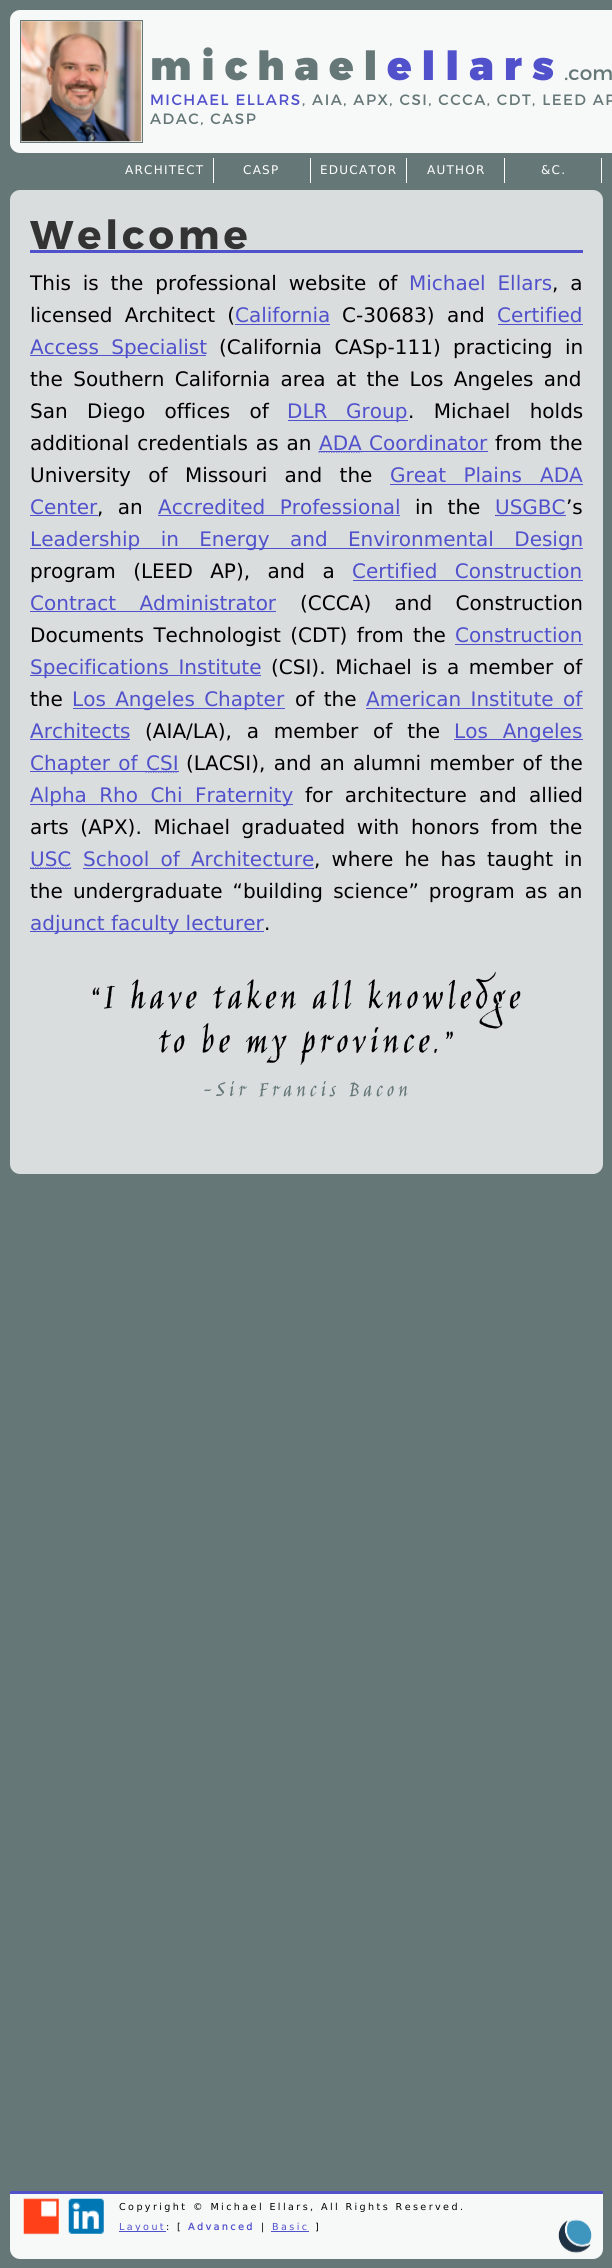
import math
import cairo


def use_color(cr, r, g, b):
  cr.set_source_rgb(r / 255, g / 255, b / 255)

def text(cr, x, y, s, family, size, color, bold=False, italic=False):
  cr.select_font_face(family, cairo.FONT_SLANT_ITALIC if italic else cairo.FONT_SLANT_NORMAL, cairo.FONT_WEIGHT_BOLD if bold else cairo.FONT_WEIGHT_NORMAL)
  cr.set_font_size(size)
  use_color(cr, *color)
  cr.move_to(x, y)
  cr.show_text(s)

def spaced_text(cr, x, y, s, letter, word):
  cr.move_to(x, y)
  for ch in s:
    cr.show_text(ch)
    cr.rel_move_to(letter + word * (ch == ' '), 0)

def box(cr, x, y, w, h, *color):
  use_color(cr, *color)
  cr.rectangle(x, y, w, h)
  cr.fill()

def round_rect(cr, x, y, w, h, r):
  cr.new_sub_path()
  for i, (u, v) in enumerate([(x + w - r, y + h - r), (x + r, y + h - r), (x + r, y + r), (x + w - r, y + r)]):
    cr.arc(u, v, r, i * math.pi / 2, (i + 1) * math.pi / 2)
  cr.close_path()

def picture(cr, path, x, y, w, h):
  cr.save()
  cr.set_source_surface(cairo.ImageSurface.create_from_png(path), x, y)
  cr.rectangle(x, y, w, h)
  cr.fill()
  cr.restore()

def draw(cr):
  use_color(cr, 102, 119, 119)
  cr.paint()
  use_color(cr, 247, 248, 248)
  round_rect(cr, 10, 10, 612, 143, 10)
  cr.fill()
  cr.rectangle(20.5, 20.5, 122, 122)
  use_color(cr, 102, 119, 119)
  cr.set_line_width(1)
  cr.stroke()
  picture(cr, "img_01.png", 21, 21, 121, 121)
  box(cr, 213, 158, 1, 25, 255, 255, 255)
  box(cr, 310, 158, 1, 25, 255, 255, 255)
  box(cr, 406, 158, 1, 25, 255, 255, 255)
  box(cr, 504, 158, 1, 25, 255, 255, 255)
  box(cr, 601, 158, 1, 25, 255, 255, 255)
  use_color(cr, 217, 221, 221)
  round_rect(cr, 10, 190, 593, 984, 10)
  cr.fill()
  box(cr, 30, 250, 553, 3, 81, 81, 204)
  box(cr, 235, 324, 95, 1, 81, 81, 204)
  box(cr, 498, 324, 85, 1, 81, 81, 204)
  box(cr, 30, 355, 176, 1, 81, 81, 204)
  box(cr, 288, 420, 120, 1, 81, 81, 204)
  cr.new_path()
  cr.move_to(318.5, 452)
  cr.line_to(361.5, 452)
  cr.set_line_width(1.2)
  cr.set_dash([1.25, 1.25])
  cr.stroke()
  box(cr, 319, 451, 169, 1, 81, 81, 204)
  box(cr, 390, 484, 150, 1, 81, 81, 204)
  cr.new_path()
  cr.move_to(539.5, 484.5)
  cr.line_to(582.5, 484.5)
  cr.stroke()
  box(cr, 540, 484, 43, 1, 81, 81, 204)
  box(cr, 30, 515, 68, 1, 81, 81, 204)
  box(cr, 158, 515, 242, 1, 81, 81, 204)
  cr.new_path()
  cr.move_to(495, 515.5)
  cr.line_to(565.5, 515.5)
  cr.stroke()
  box(cr, 495, 515, 71, 1, 81, 81, 204)
  box(cr, 30, 548, 553, 1, 81, 81, 204)
  box(cr, 353, 580, 230, 1, 81, 81, 204)
  box(cr, 30, 611, 246, 1, 81, 81, 204)
  box(cr, 455, 644, 128, 1, 81, 81, 204)
  box(cr, 30, 675, 231, 1, 81, 81, 204)
  box(cr, 73, 708, 212, 1, 81, 81, 204)
  box(cr, 366, 708, 217, 1, 81, 81, 204)
  box(cr, 30, 739, 100, 1, 81, 81, 204)
  box(cr, 454, 739, 129, 1, 81, 81, 204)
  box(cr, 30, 771, 116, 1, 81, 81, 204)
  cr.new_path()
  cr.move_to(145.5, 772)
  cr.line_to(178, 772)
  cr.stroke()
  box(cr, 146, 771, 33, 1, 81, 81, 204)
  box(cr, 30, 804, 263, 1, 81, 81, 204)
  cr.new_path()
  cr.move_to(30, 868)
  cr.line_to(71.5, 868)
  cr.stroke()
  box(cr, 30, 868, 41, 1, 81, 81, 204)
  box(cr, 83, 868, 231, 1, 81, 81, 204)
  box(cr, 30, 931, 234, 1, 81, 81, 204)
  use_color(cr, 247, 248, 248)
  cr.new_path()
  cr.move_to(10, 2191)
  cr.line_to(603, 2191)
  cr.line_to(603, 2249)
  cr.curve_to(603, 2254.5, 598.5, 2259, 593, 2259)
  cr.line_to(20, 2259)
  cr.curve_to(14.5, 2259, 10, 2254.5, 10, 2249)
  cr.close_path()
  cr.fill()
  box(cr, 10, 2191, 593, 3, 81, 81, 204)
  picture(cr, "img_02.png", 23, 2198, 36, 37)
  picture(cr, "img_03.png", 68, 2198, 36, 36)
  box(cr, 119, 2231, 47, 1, 81, 81, 204)
  box(cr, 271, 2231, 38, 1, 81, 81, 204)
  picture(cr, "img_04.png", 558, 2219, 34, 34)
  cr.select_font_face("Montserrat Black")
  cr.set_font_size(40)
  use_color(cr, 102, 119, 119)
  spaced_text(cr, 150, 80, "michael", 10, 0)
  use_color(cr, 81, 81, 204)
  spaced_text(cr, 387, 80, "ellars", 10, 0)
  text(cr, 564, 80, ".com", "Montserrat", 20, (102, 119, 119))
  cr.set_font_size(15)
  use_color(cr, 81, 81, 204)
  spaced_text(cr, 150, 105, "MICHAEL ELLARS", 1.5, 0)
  use_color(cr, 102, 119, 119)
  spaced_text(cr, 302, 105, ", AIA, APX, CSI, CCCA, CDT, LEED AP", 1.5, 0)
  spaced_text(cr, 150, 124, "ADAC, CASP", 1.5, 0)
  cr.select_font_face("DejaVu Sans")
  cr.set_font_size(12)
  use_color(cr, 255, 255, 255)
  spaced_text(cr, 125, 174, "ARCHITECT", 1.25, 0)
  spaced_text(cr, 243, 174, "CASP", 1.25, 0)
  spaced_text(cr, 320, 174, "EDUCATOR", 1.25, 0)
  spaced_text(cr, 427, 174, "AUTHOR", 1.25, 0)
  spaced_text(cr, 541, 174, "&C.", 1.25, 0)
  cr.select_font_face("Montserrat", cairo.FONT_SLANT_NORMAL, cairo.FONT_WEIGHT_BOLD)
  cr.set_font_size(40)
  use_color(cr, 51, 51, 51)
  spaced_text(cr, 30, 249, "Welcome", 4, 0)
  cr.select_font_face("DejaVu Sans")
  cr.set_font_size(20)
  use_color(cr, 0, 0, 0)
  spaced_text(cr, 30, 290, "This is the professional website of", 0, 5.5)
  use_color(cr, 81, 81, 204)
  spaced_text(cr, 409, 290, "Michael Ellars", 0, 5.5)
  use_color(cr, 0, 0, 0)
  spaced_text(cr, 552, 290, ", a", 0, 5.5)
  spaced_text(cr, 30, 322, "licensed Architect (", 0, 6)
  text(cr, 235, 322, "California", "DejaVu Sans", 20, (81, 81, 204))
  use_color(cr, 0, 0, 0)
  spaced_text(cr, 342, 322, "C-30683) and", 0, 6)
  text(cr, 497, 322, "Certified", "DejaVu Sans", 20, (81, 81, 204))
  spaced_text(cr, 30, 354, "Access Specialist", 0, 6)
  use_color(cr, 0, 0, 0)
  spaced_text(cr, 219, 354, "(California CASp-111) practicing in", 0, 6)
  spaced_text(cr, 30, 386, "the Southern California area at the Los Angeles and", 0, 4)
  spaced_text(cr, 30, 418, "San Diego offices of", 0, 13)
  text(cr, 287, 418, "DLR", "DejaVu Sans", 20, (81, 81, 204))
  text(cr, 346, 418, "Group", "DejaVu Sans", 20, (81, 81, 204))
  use_color(cr, 0, 0, 0)
  spaced_text(cr, 408, 418, ". Michael holds", 0, 13)
  spaced_text(cr, 30, 450, "additional credentials as an", 0, 1.5)
  text(cr, 319, 450, "ADA", "DejaVu Sans", 20, (81, 81, 204))
  text(cr, 369, 450, "Coordinator", "DejaVu Sans", 20, (81, 81, 204))
  use_color(cr, 0, 0, 0)
  spaced_text(cr, 495, 450, "from the", 0, 1.5)
  spaced_text(cr, 30, 482, "University of Missouri and the", 0, 11)
  use_color(cr, 81, 81, 204)
  spaced_text(cr, 390, 482, "Great Plains", 0, 11)
  text(cr, 540, 482, "ADA", "DejaVu Sans", 20, (81, 81, 204))
  text(cr, 30, 514, "Center", "DejaVu Sans", 20, (81, 81, 204))
  use_color(cr, 0, 0, 0)
  spaced_text(cr, 97, 514, ", an", 0, 8)
  use_color(cr, 81, 81, 204)
  spaced_text(cr, 158, 514, "Accredited Professional", 0, 8)
  use_color(cr, 0, 0, 0)
  spaced_text(cr, 415, 514, "in the", 0, 8)
  text(cr, 495, 514, "USGBC", "DejaVu Sans", 20, (81, 81, 204))
  text(cr, 566, 514, "’s", "DejaVu Sans", 20, (0, 0, 0))
  use_color(cr, 81, 81, 204)
  spaced_text(cr, 30, 546, "Leadership in Energy and Environmental Design", 0, 14)
  use_color(cr, 0, 0, 0)
  spaced_text(cr, 30, 578, "program (LEED AP), and a", 0, 11)
  use_color(cr, 81, 81, 204)
  spaced_text(cr, 352, 578, "Certified Construction", 0, 11)
  spaced_text(cr, 30, 610, "Contract Administrator", 0, 17)
  use_color(cr, 0, 0, 0)
  spaced_text(cr, 300, 610, "(CCCA) and Construction", 0, 17)
  spaced_text(cr, 30, 642, "Documents Technologist (CDT) from the", 0, 3)
  text(cr, 455, 642, "Construction", "DejaVu Sans", 20, (81, 81, 204))
  spaced_text(cr, 30, 674, "Specifications Institute", 0, 3.25)
  use_color(cr, 0, 0, 0)
  spaced_text(cr, 271, 674, "(CSI). Michael is a member of", 0, 3.25)
  text(cr, 30, 706, "the", "DejaVu Sans", 20, (0, 0, 0))
  use_color(cr, 81, 81, 204)
  spaced_text(cr, 72, 706, "Los Angeles Chapter", 0, 3)
  use_color(cr, 0, 0, 0)
  spaced_text(cr, 295, 706, "of the", 0, 3)
  use_color(cr, 81, 81, 204)
  spaced_text(cr, 366, 706, "American Institute of", 0, 3)
  text(cr, 30, 738, "Architects", "DejaVu Sans", 20, (81, 81, 204))
  use_color(cr, 0, 0, 0)
  spaced_text(cr, 145, 738, "(AIA/LA), a member of the", 0, 8.5)
  use_color(cr, 81, 81, 204)
  spaced_text(cr, 454, 738, "Los Angeles", 0, 8.5)
  spaced_text(cr, 30, 770, "Chapter of", 0, 2)
  text(cr, 146, 770, "CSI", "DejaVu Sans", 20, (81, 81, 204))
  use_color(cr, 0, 0, 0)
  spaced_text(cr, 186, 770, "(LACSI), and an alumni member of the", 0, 2)
  use_color(cr, 81, 81, 204)
  spaced_text(cr, 30, 802, "Alpha Rho Chi Fraternity", 0, 6)
  use_color(cr, 0, 0, 0)
  spaced_text(cr, 305, 802, "for architecture and allied", 0, 6)
  spaced_text(cr, 30, 834, "arts (APX). Michael graduated with honors from the", 0, 5.25)
  text(cr, 30, 866, "USC", "DejaVu Sans", 20, (81, 81, 204))
  spaced_text(cr, 83, 866, "School of Architecture", 0, 4.75)
  use_color(cr, 0, 0, 0)
  spaced_text(cr, 314, 866, ", where he has taught in", 0, 4.75)
  spaced_text(cr, 30, 898, "the undergraduate “building science” program as an", 0, 3.75)
  text(cr, 30, 930, "adjunct faculty lecturer", "DejaVu Sans", 20, (81, 81, 204))
  text(cr, 264, 930, ".", "DejaVu Sans", 20, (0, 0, 0))
  cr.select_font_face("Jim Nightshade")
  cr.set_font_size(40)
  spaced_text(cr, 89, 1008, "“I have taken all knowledge", 4, 0)
  spaced_text(cr, 157, 1052, "to be my province.”", 4, 0)
  cr.set_font_size(24)
  use_color(cr, 102, 119, 119)
  spaced_text(cr, 202, 1096, "—Sir Francis Bacon", 4, 0)
  cr.select_font_face("DejaVu Sans")
  cr.set_font_size(9.6)
  use_color(cr, 0, 0, 0)
  spaced_text(cr, 119, 2210, "Copyright © Michael Ellars, All Rights Reserved.", 2.4, 0)
  use_color(cr, 81, 81, 204)
  spaced_text(cr, 119, 2230, "Layout", 2.4, 0)
  use_color(cr, 0, 0, 0)
  spaced_text(cr, 166, 2230, ": [", 2.4, 0)
  cr.select_font_face("DejaVu Sans", cairo.FONT_SLANT_NORMAL, cairo.FONT_WEIGHT_BOLD)
  use_color(cr, 81, 81, 204)
  spaced_text(cr, 188, 2230, "Advanced", 2.4, 0)
  cr.select_font_face("DejaVu Sans")
  use_color(cr, 0, 0, 0)
  spaced_text(cr, 261, 2230, "|", 2.4, 0)
  use_color(cr, 81, 81, 204)
  spaced_text(cr, 272, 2230, "Basic", 2.4, 0)
  use_color(cr, 0, 0, 0)
  spaced_text(cr, 315, 2230, "]", 2.4, 0)


surface = cairo.ImageSurface(cairo.FORMAT_RGB24, 612, 2268)
cr = cairo.Context(surface)
options = cairo.FontOptions()
options.set_hint_metrics(cairo.HINT_METRICS_OFF)
options.set_hint_style(cairo.HINT_STYLE_NONE)
cr.set_font_options(options)
cr.set_miter_limit(4)
draw(cr)
surface.write_to_png("out.png")
